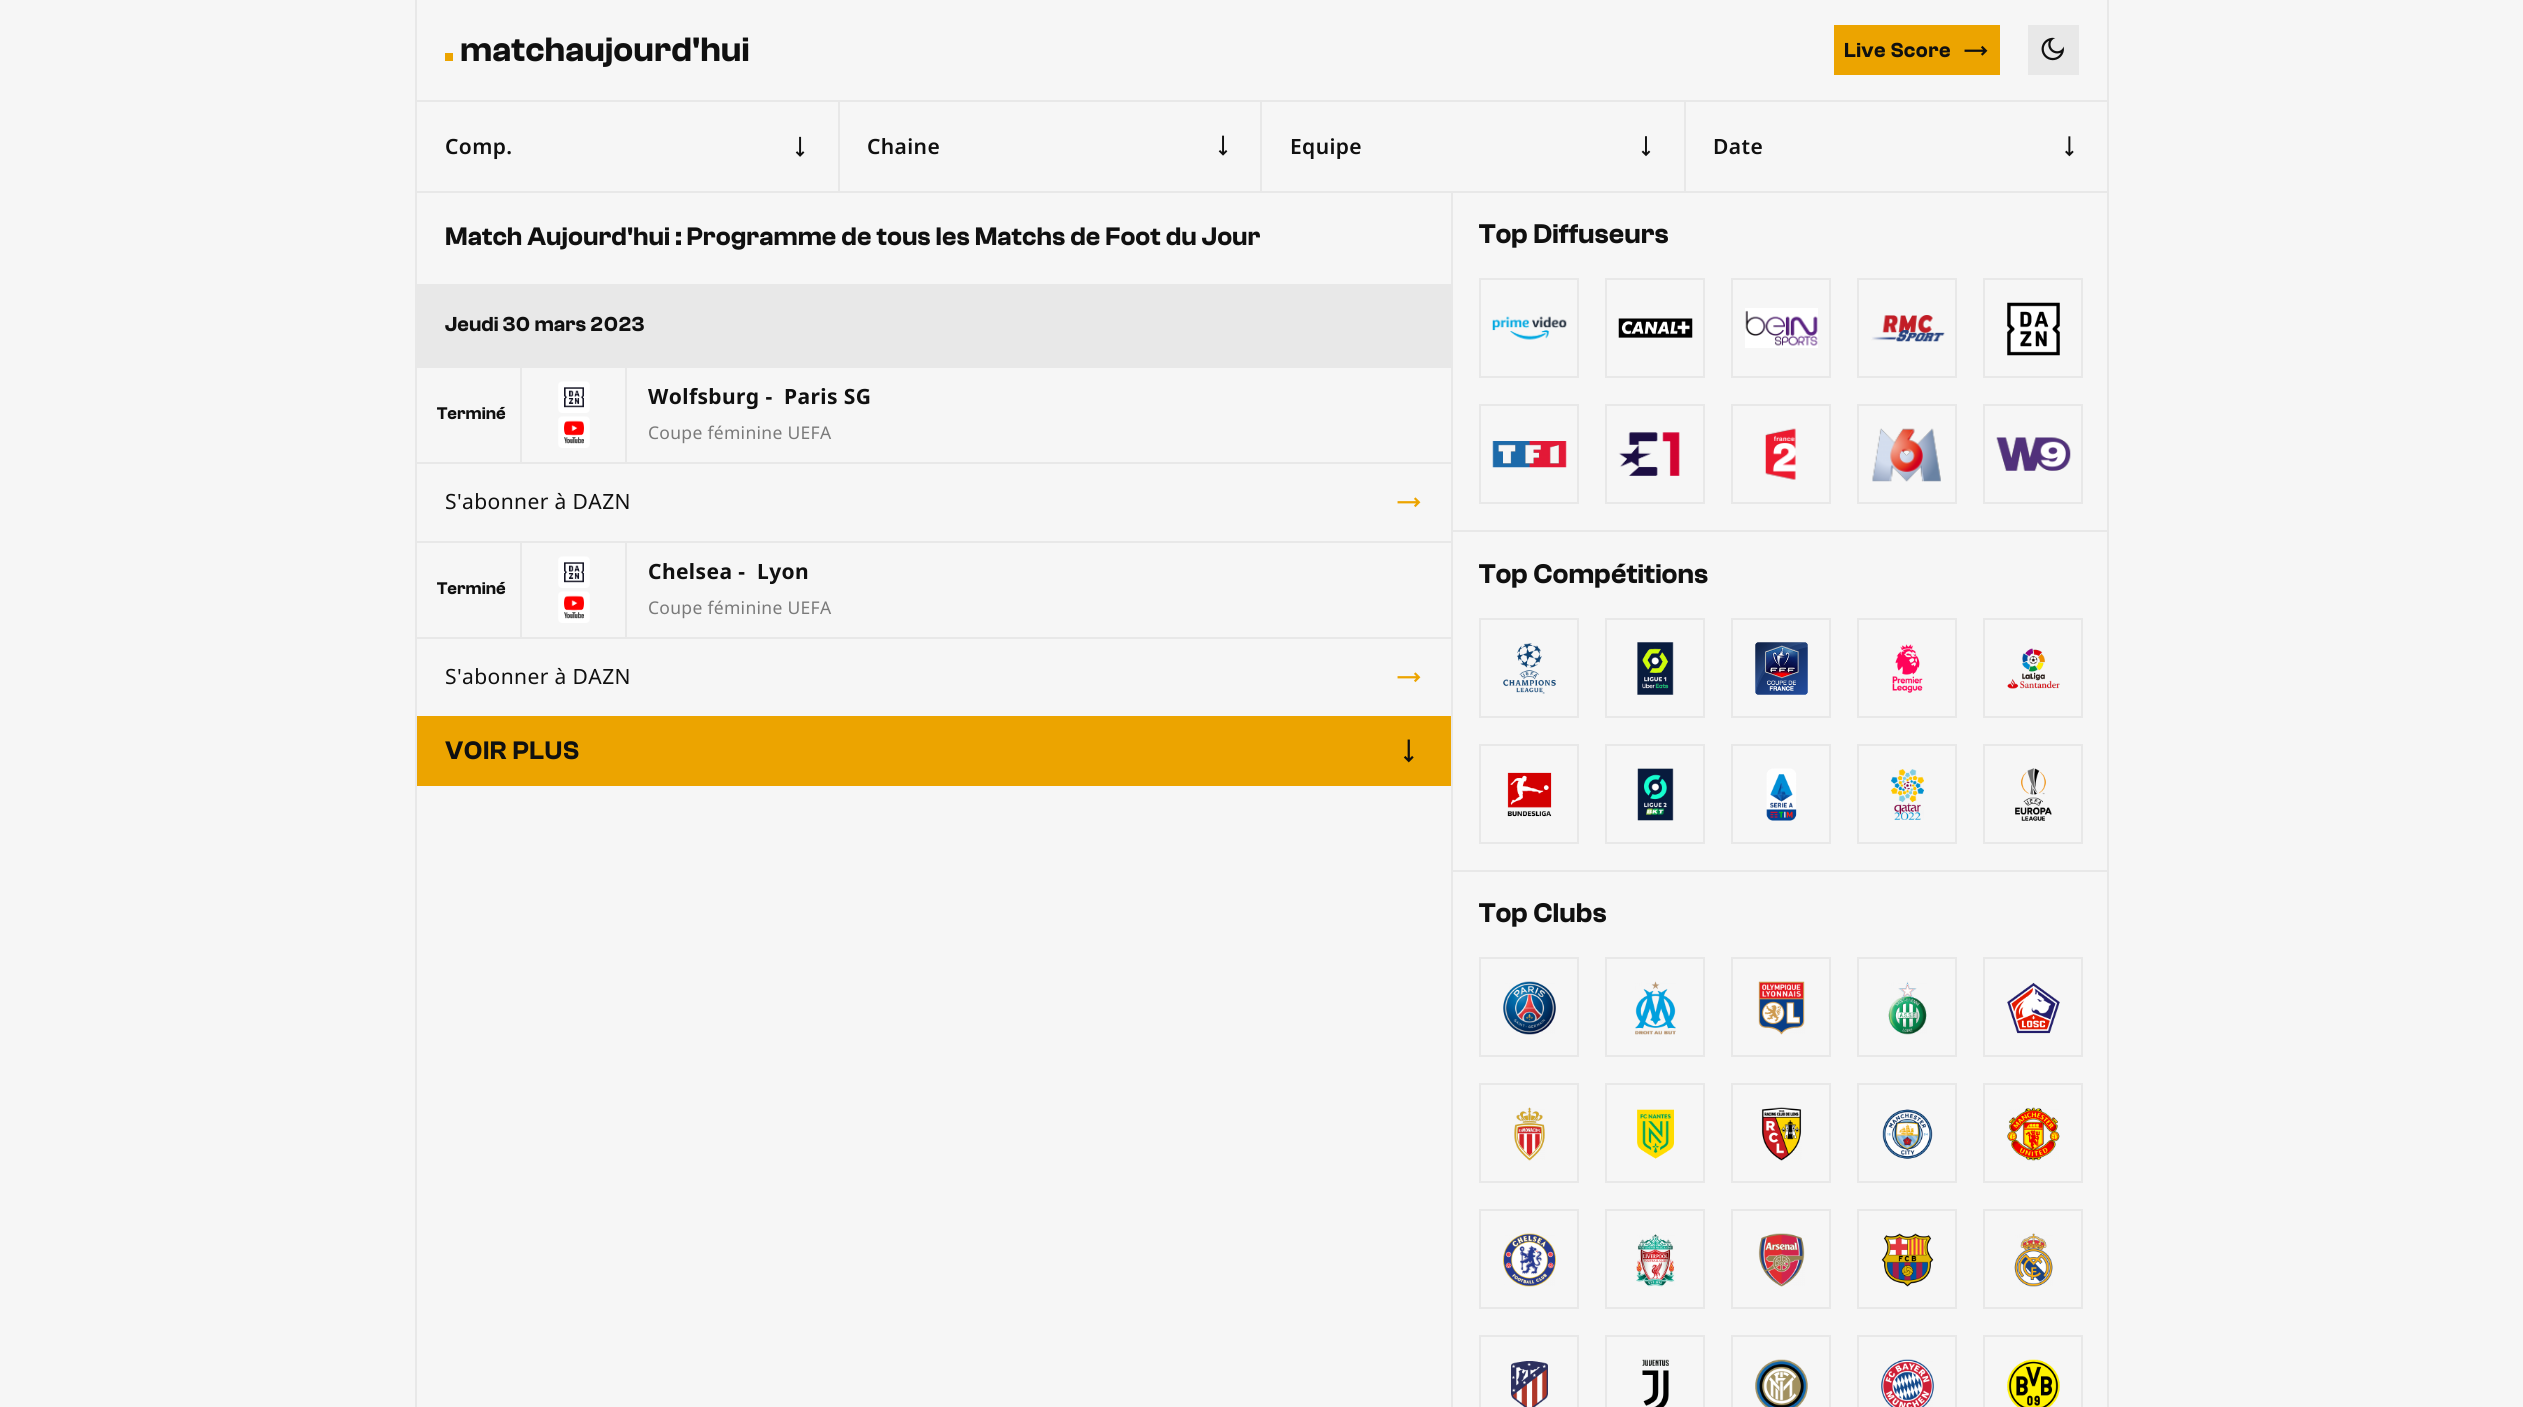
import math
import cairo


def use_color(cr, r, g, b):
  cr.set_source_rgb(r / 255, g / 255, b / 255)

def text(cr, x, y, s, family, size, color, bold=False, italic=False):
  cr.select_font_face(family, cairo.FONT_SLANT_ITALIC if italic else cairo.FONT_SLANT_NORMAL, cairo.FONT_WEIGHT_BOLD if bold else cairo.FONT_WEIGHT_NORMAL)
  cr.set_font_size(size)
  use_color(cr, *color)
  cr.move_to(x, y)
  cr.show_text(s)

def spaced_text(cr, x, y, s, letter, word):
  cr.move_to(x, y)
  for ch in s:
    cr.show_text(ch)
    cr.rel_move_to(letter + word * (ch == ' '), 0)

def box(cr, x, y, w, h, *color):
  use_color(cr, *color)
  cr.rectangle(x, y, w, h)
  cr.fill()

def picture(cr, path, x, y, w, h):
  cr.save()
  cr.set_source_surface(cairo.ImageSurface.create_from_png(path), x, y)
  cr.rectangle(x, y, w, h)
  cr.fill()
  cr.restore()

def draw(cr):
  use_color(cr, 246, 246, 246)
  cr.paint()
  box(cr, 2107, 0, 2, 100, 232, 232, 232)
  box(cr, 415, 0, 2, 100, 232, 232, 232)
  box(cr, 445, 53, 8, 8, 236, 164, 0)
  box(cr, 1834, 25, 166, 50, 236, 164, 0)
  picture(cr, "img_01.png", 1964, 45, 24, 11)
  box(cr, 2028, 25, 51, 50, 232, 232, 232)
  picture(cr, "img_02.png", 2041, 37, 23, 24)
  box(cr, 415, 100, 1694, 2, 232, 232, 232)
  box(cr, 2107, 100, 2, 91, 232, 232, 232)
  box(cr, 415, 100, 2, 91, 232, 232, 232)
  box(cr, 838, 102, 2, 89, 232, 232, 232)
  picture(cr, "img_03.png", 795, 136, 10, 21)
  box(cr, 1260, 102, 2, 89, 232, 232, 232)
  picture(cr, "img_04.png", 1218, 135, 10, 21)
  box(cr, 1684, 102, 2, 89, 232, 232, 232)
  picture(cr, "img_05.png", 1641, 136, 10, 21)
  picture(cr, "img_06.png", 2065, 136, 9, 21)
  box(cr, 415, 191, 1694, 2, 232, 232, 232)
  box(cr, 1451, 193, 2, 1214, 232, 232, 232)
  box(cr, 415, 193, 2, 1214, 232, 232, 232)
  box(cr, 417, 284, 1034, 84, 232, 232, 232)
  box(cr, 520, 368, 2, 94, 232, 232, 232)
  box(cr, 625, 368, 2, 94, 232, 232, 232)
  picture(cr, "img_07.png", 558, 381, 32, 32)
  picture(cr, "img_08.png", 558, 416, 32, 32)
  box(cr, 417, 462, 1034, 2, 232, 232, 232)
  picture(cr, "img_09.png", 1397, 497, 24, 11)
  box(cr, 417, 541, 1034, 2, 232, 232, 232)
  box(cr, 520, 543, 2, 94, 232, 232, 232)
  box(cr, 625, 543, 2, 94, 232, 232, 232)
  picture(cr, "img_07.png", 558, 556, 32, 32)
  picture(cr, "img_08.png", 558, 591, 32, 32)
  box(cr, 417, 637, 1034, 2, 232, 232, 232)
  picture(cr, "img_09.png", 1397, 672, 24, 11)
  box(cr, 417, 716, 1034, 70, 236, 164, 0)
  picture(cr, "img_10.png", 1403, 739, 11, 24)
  box(cr, 2107, 193, 2, 1214, 232, 232, 232)
  box(cr, 1453, 530, 654, 2, 232, 232, 232)
  cr.rectangle(1480, 279, 98, 98)
  cr.stroke()
  picture(cr, "img_11.png", 1492, 316, 75, 24)
  cr.rectangle(1606, 279, 98, 98)
  cr.stroke()
  picture(cr, "img_12.png", 1618, 318, 75, 20)
  cr.rectangle(1732, 279, 98, 98)
  cr.stroke()
  picture(cr, "img_13.png", 1745, 308, 73, 40)
  cr.rectangle(1858, 279, 98, 98)
  cr.stroke()
  picture(cr, "img_14.png", 1871, 315, 74, 27)
  cr.rectangle(1984, 279, 98, 98)
  cr.stroke()
  picture(cr, "img_15.png", 2007, 302, 53, 54)
  cr.rectangle(1480, 405, 98, 98)
  cr.stroke()
  picture(cr, "img_16.png", 1492, 441, 75, 27)
  cr.rectangle(1606, 405, 98, 98)
  cr.stroke()
  picture(cr, "img_17.png", 1618, 432, 62, 44)
  cr.rectangle(1732, 405, 98, 98)
  cr.stroke()
  picture(cr, "img_18.png", 1765, 428, 31, 52)
  cr.rectangle(1858, 405, 98, 98)
  cr.stroke()
  picture(cr, "img_19.png", 1872, 428, 69, 54)
  cr.rectangle(1984, 405, 98, 98)
  cr.stroke()
  picture(cr, "img_20.png", 1996, 437, 75, 34)
  box(cr, 1453, 870, 654, 2, 232, 232, 232)
  cr.rectangle(1480, 619, 98, 98)
  cr.stroke()
  picture(cr, "img_21.png", 1503, 643, 53, 51)
  cr.rectangle(1606, 619, 98, 98)
  cr.stroke()
  picture(cr, "img_22.png", 1637, 642, 37, 53)
  cr.rectangle(1732, 619, 98, 98)
  cr.stroke()
  picture(cr, "img_23.png", 1755, 642, 53, 53)
  cr.rectangle(1858, 619, 98, 98)
  cr.stroke()
  picture(cr, "img_24.png", 1892, 644, 31, 49)
  cr.rectangle(1984, 619, 98, 98)
  cr.stroke()
  picture(cr, "img_25.png", 2007, 648, 53, 41)
  cr.rectangle(1480, 745, 98, 98)
  cr.stroke()
  picture(cr, "img_26.png", 1507, 772, 45, 45)
  cr.rectangle(1606, 745, 98, 98)
  cr.stroke()
  picture(cr, "img_27.png", 1637, 768, 37, 53)
  cr.rectangle(1732, 745, 98, 98)
  cr.stroke()
  picture(cr, "img_28.png", 1766, 768, 31, 53)
  cr.rectangle(1858, 745, 98, 98)
  cr.stroke()
  picture(cr, "img_29.png", 1891, 769, 33, 51)
  cr.rectangle(1984, 745, 98, 98)
  cr.stroke()
  picture(cr, "img_30.png", 2015, 768, 37, 53)
  cr.rectangle(1480, 958, 98, 98)
  cr.stroke()
  picture(cr, "img_31.png", 1503, 981, 53, 54)
  cr.rectangle(1606, 958, 98, 98)
  cr.stroke()
  picture(cr, "img_32.png", 1635, 981, 41, 54)
  cr.rectangle(1732, 958, 98, 98)
  cr.stroke()
  picture(cr, "img_33.png", 1758, 981, 47, 54)
  cr.rectangle(1858, 958, 98, 98)
  cr.stroke()
  picture(cr, "img_34.png", 1888, 981, 39, 54)
  cr.rectangle(1984, 958, 98, 98)
  cr.stroke()
  picture(cr, "img_35.png", 2007, 982, 53, 52)
  cr.rectangle(1480, 1084, 98, 98)
  cr.stroke()
  picture(cr, "img_36.png", 1514, 1107, 31, 54)
  cr.rectangle(1606, 1084, 98, 98)
  cr.stroke()
  picture(cr, "img_37.png", 1637, 1109, 38, 50)
  cr.rectangle(1732, 1084, 98, 98)
  cr.stroke()
  picture(cr, "img_38.png", 1761, 1107, 41, 54)
  cr.rectangle(1858, 1084, 98, 98)
  cr.stroke()
  picture(cr, "img_39.png", 1882, 1109, 51, 50)
  cr.rectangle(1984, 1084, 98, 98)
  cr.stroke()
  picture(cr, "img_40.png", 2007, 1107, 53, 54)
  cr.rectangle(1480, 1210, 98, 98)
  cr.stroke()
  picture(cr, "img_41.png", 1503, 1233, 53, 54)
  cr.rectangle(1606, 1210, 98, 98)
  cr.stroke()
  picture(cr, "img_42.png", 1636, 1234, 39, 53)
  cr.rectangle(1732, 1210, 98, 98)
  cr.stroke()
  picture(cr, "img_43.png", 1758, 1233, 47, 54)
  cr.rectangle(1858, 1210, 98, 98)
  cr.stroke()
  picture(cr, "img_44.png", 1881, 1233, 53, 54)
  cr.rectangle(1984, 1210, 98, 98)
  cr.stroke()
  picture(cr, "img_45.png", 2014, 1233, 39, 54)
  cr.rectangle(1480, 1336, 98, 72)
  cr.stroke()
  picture(cr, "img_46.png", 1511, 1361, 37, 46)
  cr.rectangle(1606, 1336, 98, 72)
  cr.stroke()
  picture(cr, "img_47.png", 1642, 1359, 27, 48)
  cr.rectangle(1732, 1336, 98, 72)
  cr.stroke()
  picture(cr, "img_48.png", 1755, 1359, 53, 48)
  cr.rectangle(1858, 1336, 98, 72)
  cr.stroke()
  picture(cr, "img_49.png", 1881, 1359, 53, 48)
  cr.rectangle(1984, 1336, 98, 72)
  cr.stroke()
  picture(cr, "img_50.png", 2007, 1359, 53, 48)
  text(cr, 460, 61, "matchaujourd'hui", "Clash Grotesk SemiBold", 35, (16, 16, 16))
  cr.set_font_size(21)
  spaced_text(cr, 1844, 57, "Live Score", 0.4, 0)
  cr.select_font_face("Noto Sans SemiBold")
  spaced_text(cr, 445, 154, "Comp.", 0.4, 0)
  spaced_text(cr, 867, 154, "Chaine", 0.4, 0)
  cr.save()
  cr.rectangle(1290, 133, 73, 26)
  cr.clip()
  spaced_text(cr, 1290, 154, "Equipe", 0.4, 0)
  cr.restore()
  spaced_text(cr, 1713, 154, "Date", 0.4, 0)
  text(cr, 445, 245, "Match Aujourd'hui : Programme de tous les Matchs de Foot du Jour", "Clash Grotesk SemiBold", 26.25, (16, 16, 16))
  text(cr, 445, 331, "Jeudi 30 mars 2023", "Clash Grotesk SemiBold", 21, (16, 16, 16))
  text(cr, 437, 419, "Terminé", "Clash Grotesk SemiBold", 17.5, (16, 16, 16))
  cr.select_font_face("Noto Sans", cairo.FONT_SLANT_NORMAL, cairo.FONT_WEIGHT_BOLD)
  cr.set_font_size(21)
  spaced_text(cr, 648, 404, "Wolfsburg -", 0.4, 0)
  spaced_text(cr, 784, 404, "Paris SG", 0.4, 0)
  cr.select_font_face("Noto Sans")
  cr.set_font_size(17.5)
  use_color(cr, 122, 122, 122)
  spaced_text(cr, 648, 439, "Coupe féminine UEFA", 0.3, 0)
  cr.set_font_size(21)
  use_color(cr, 16, 16, 16)
  spaced_text(cr, 445, 509, "S'abonner à DAZN", 0.4, 0)
  text(cr, 437, 594, "Terminé", "Clash Grotesk SemiBold", 17.5, (16, 16, 16))
  cr.select_font_face("Noto Sans", cairo.FONT_SLANT_NORMAL, cairo.FONT_WEIGHT_BOLD)
  cr.set_font_size(21)
  spaced_text(cr, 648, 579, "Chelsea -", 0.4, 0)
  spaced_text(cr, 757, 579, "Lyon", 0.4, 0)
  cr.select_font_face("Noto Sans")
  cr.set_font_size(17.5)
  use_color(cr, 122, 122, 122)
  spaced_text(cr, 648, 614, "Coupe féminine UEFA", 0.3, 0)
  cr.set_font_size(21)
  use_color(cr, 16, 16, 16)
  spaced_text(cr, 445, 684, "S'abonner à DAZN", 0.4, 0)
  cr.select_font_face("Clash Grotesk SemiBold")
  cr.set_font_size(26.25)
  spaced_text(cr, 445, 759, "VOIR PLUS", 0.5, 0)
  text(cr, 1479, 243, "Top Diffuseurs", "Clash Grotesk SemiBold", 28, (16, 16, 16))
  text(cr, 1479, 583, "Top Compétitions", "Clash Grotesk SemiBold", 28, (16, 16, 16))
  text(cr, 1479, 922, "Top Clubs", "Clash Grotesk SemiBold", 28, (16, 16, 16))


surface = cairo.ImageSurface(cairo.FORMAT_RGB24, 2523, 1407)
cr = cairo.Context(surface)
options = cairo.FontOptions()
options.set_hint_metrics(cairo.HINT_METRICS_OFF)
options.set_hint_style(cairo.HINT_STYLE_NONE)
cr.set_font_options(options)
cr.set_miter_limit(4)
draw(cr)
surface.write_to_png("out.png")
